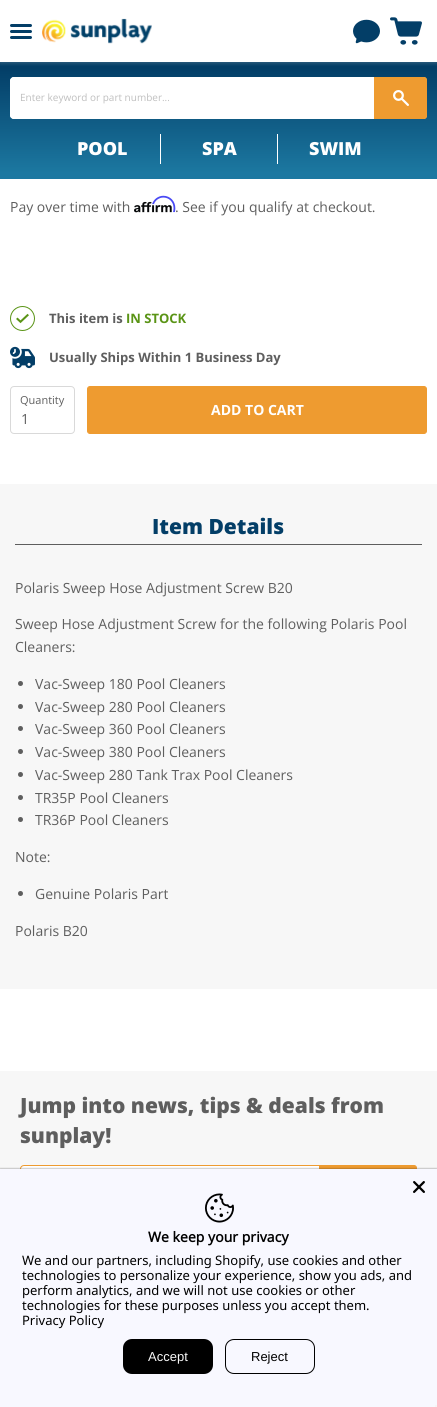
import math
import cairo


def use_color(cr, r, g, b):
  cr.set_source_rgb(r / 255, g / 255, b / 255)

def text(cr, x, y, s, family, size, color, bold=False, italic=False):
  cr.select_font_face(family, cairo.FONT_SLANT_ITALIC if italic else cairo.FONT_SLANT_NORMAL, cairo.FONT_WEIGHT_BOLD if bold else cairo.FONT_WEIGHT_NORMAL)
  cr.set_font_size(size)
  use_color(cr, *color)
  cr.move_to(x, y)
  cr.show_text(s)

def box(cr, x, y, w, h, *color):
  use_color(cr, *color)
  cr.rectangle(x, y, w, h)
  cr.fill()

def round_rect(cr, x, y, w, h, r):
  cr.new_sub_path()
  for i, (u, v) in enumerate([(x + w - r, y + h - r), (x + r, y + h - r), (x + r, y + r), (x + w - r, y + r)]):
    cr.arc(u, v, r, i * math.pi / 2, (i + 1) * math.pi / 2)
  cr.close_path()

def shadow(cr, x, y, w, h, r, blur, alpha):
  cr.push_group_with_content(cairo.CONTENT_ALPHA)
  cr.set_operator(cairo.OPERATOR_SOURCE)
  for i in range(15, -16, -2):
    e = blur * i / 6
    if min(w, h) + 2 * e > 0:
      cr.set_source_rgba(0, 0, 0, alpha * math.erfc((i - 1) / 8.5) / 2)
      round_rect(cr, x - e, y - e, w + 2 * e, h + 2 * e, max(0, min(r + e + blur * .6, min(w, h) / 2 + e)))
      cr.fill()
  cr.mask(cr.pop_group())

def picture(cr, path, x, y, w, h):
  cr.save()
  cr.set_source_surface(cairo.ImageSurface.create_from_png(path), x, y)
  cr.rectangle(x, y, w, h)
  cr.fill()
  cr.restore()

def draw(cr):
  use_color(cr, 255, 255, 255)
  cr.paint()
  gradient = cairo.LinearGradient(219, 62, 219, 179)
  gradient.add_color_stop_rgba(0.05, 0.012, 0.243, 0.404, 1)
  gradient.add_color_stop_rgba(0.95, 0.11, 0.471, 0.631, 1)
  cr.set_source(gradient)
  cr.rectangle(0, 62, 437, 117)
  cr.fill()
  cr.save()
  cr.rectangle(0, 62, 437, 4)
  cr.clip()
  use_color(cr, 217, 217, 217)
  shadow(cr, 0, 1, 437, 62, 0, 2, 0.25)
  cr.restore()
  use_color(cr, 3, 62, 103)
  round_rect(cr, 10, 24, 22, 3, 1.5)
  cr.fill()
  round_rect(cr, 10, 30, 22, 3, 1.5)
  cr.fill()
  round_rect(cr, 10, 36, 22, 3, 1.5)
  cr.fill()
  picture(cr, "img_01.png", 42, 18, 110, 26)
  picture(cr, "img_02.png", 353, 19, 27, 25)
  picture(cr, "img_03.png", 390, 17, 32, 28)
  use_color(cr, 255, 255, 255)
  round_rect(cr, 10, 77, 417, 42, 4)
  cr.fill()
  round_rect(cr, 10, 77, 364, 42, 4)
  cr.fill()
  use_color(cr, 238, 155, 48)
  cr.new_path()
  cr.move_to(374.5, 77.5)
  cr.line_to(424, 77.5)
  cr.curve_to(425.5, 77.5, 426.5, 78.5, 426.5, 80)
  cr.line_to(426.5, 116)
  cr.curve_to(426.5, 117.5, 425.5, 118.5, 424, 118.5)
  cr.line_to(374.5, 118.5)
  cr.close_path()
  cr.fill_preserve()
  cr.set_line_width(1)
  cr.stroke()
  picture(cr, "img_04.png", 393, 90, 16, 16)
  box(cr, 160, 134, 1, 30, 255, 255, 255)
  box(cr, 277, 134, 1, 30, 255, 255, 255)
  picture(cr, "img_06.png", 134, 201, 38, 12)
  picture(cr, "img_05.png", 152, 195, 24, 18)
  cr.arc(22.5, 318.5, 12, 0, 2 * math.pi)
  use_color(cr, 90, 148, 22)
  cr.stroke()
  picture(cr, "img_07.png", 16, 313, 13, 11)
  picture(cr, "img_08.png", 10, 346, 25, 23)
  round_rect(cr, 10.5, 386.5, 64, 47, 3.5)
  use_color(cr, 217, 217, 217)
  cr.stroke()
  use_color(cr, 238, 155, 48)
  round_rect(cr, 87.5, 386.5, 339, 47, 2.5)
  cr.fill_preserve()
  cr.stroke()
  box(cr, 0, 484, 437, 505, 247, 247, 247)
  box(cr, 15, 544, 407, 1, 94, 94, 94)
  cr.arc(20.5, 683.5, 2.5, 0, 2 * math.pi)
  cr.fill()
  cr.arc(20.5, 706.5, 2.5, 0, 2 * math.pi)
  cr.fill()
  cr.arc(20.5, 728.5, 2.5, 0, 2 * math.pi)
  cr.fill()
  cr.arc(20.5, 751.5, 2.5, 0, 2 * math.pi)
  cr.fill()
  cr.arc(20.5, 774.5, 2.5, 0, 2 * math.pi)
  cr.fill()
  cr.arc(20.5, 797.5, 2.5, 0, 2 * math.pi)
  cr.fill()
  cr.arc(20.5, 819.5, 2.5, 0, 2 * math.pi)
  cr.fill()
  cr.arc(20.5, 893.5, 2.5, 0, 2 * math.pi)
  cr.fill()
  box(cr, 0, 1071, 437, 98, 247, 247, 247)
  use_color(cr, 255, 255, 255)
  cr.new_path()
  cr.move_to(24, 1165.5)
  cr.line_to(319.5, 1165.5)
  cr.line_to(319.5, 1212.5)
  cr.line_to(24, 1212.5)
  cr.curve_to(22, 1212.5, 20.5, 1211, 20.5, 1209)
  cr.line_to(20.5, 1169)
  cr.curve_to(20.5, 1167, 22, 1165.5, 24, 1165.5)
  cr.close_path()
  cr.fill_preserve()
  use_color(cr, 238, 155, 48)
  cr.stroke()
  cr.new_path()
  cr.move_to(320.5, 1165.5)
  cr.line_to(414, 1165.5)
  cr.curve_to(415.5, 1165.5, 416.5, 1166.5, 416.5, 1168)
  cr.line_to(416.5, 1210)
  cr.curve_to(416.5, 1211.5, 415.5, 1212.5, 414, 1212.5)
  cr.line_to(320.5, 1212.5)
  cr.close_path()
  cr.fill_preserve()
  cr.stroke()
  use_color(cr, 0, 0, 0)
  shadow(cr, 0, 1169, 437, 238, 0, 1, 0.5)
  box(cr, 0, 1169, 437, 238, 248, 248, 255)
  picture(cr, "img_09.png", 413, 1181, 12, 12)
  picture(cr, "img_10.png", 205, 1193, 29, 30)
  use_color(cr, 0, 0, 0)
  round_rect(cr, 123, 1339, 90, 35, 9)
  cr.fill()
  round_rect(cr, 225.5, 1339.5, 89, 34, 8.5)
  cr.stroke()
  box(cr, 435, 1405, 2, 2, 245, 245, 245)
  text(cr, 20, 101, "Enter keyword or part number...", "Open Sans", 10, (191, 191, 191))
  text(cr, 77, 155, "POOL", "Open Sans ExtraBold", 18, (255, 255, 255))
  text(cr, 202, 155, "SPA", "Open Sans ExtraBold", 18, (255, 255, 255))
  text(cr, 309, 155, "SWIM", "Open Sans ExtraBold", 18, (255, 255, 255))
  text(cr, 10, 212, "Pay over time with", "Open Sans", 14, (94, 94, 94))
  text(cr, 175, 212, ". See if you qualify at checkout.", "Open Sans", 14, (94, 94, 94))
  text(cr, 49, 323, "This item is", "Open Sans", 13, (94, 94, 94), bold=True)
  text(cr, 126, 323, "IN STOCK", "Open Sans", 13, (90, 148, 22), bold=True)
  text(cr, 49, 362, "Usually Ships Within 1 Business Day", "Open Sans", 13, (94, 94, 94), bold=True)
  text(cr, 20, 404, "Quantity", "Open Sans", 11, (94, 94, 94))
  text(cr, 21, 424, "1", "Open Sans", 14, (94, 94, 94))
  text(cr, 211, 415, "ADD TO CART", "Open Sans", 14, (255, 255, 255), bold=True)
  text(cr, 152, 534, "Item Details", "Open Sans ExtraBold", 21, (3, 62, 103))
  text(cr, 15, 593, "Polaris Sweep Hose Adjustment Screw B20", "Open Sans", 14, (94, 94, 94))
  text(cr, 15, 629, "Sweep Hose Adjustment Screw for the following Polaris Pool", "Open Sans", 14, (94, 94, 94))
  text(cr, 15, 652, "Cleaners:", "Open Sans", 14, (94, 94, 94))
  text(cr, 35, 689, "Vac-Sweep 180 Pool Cleaners", "Open Sans", 14, (94, 94, 94))
  text(cr, 35, 712, "Vac-Sweep 280 Pool Cleaners", "Open Sans", 14, (94, 94, 94))
  text(cr, 35, 734, "Vac-Sweep 360 Pool Cleaners", "Open Sans", 14, (94, 94, 94))
  text(cr, 35, 757, "Vac-Sweep 380 Pool Cleaners", "Open Sans", 14, (94, 94, 94))
  text(cr, 35, 780, "Vac-Sweep 280 Tank Trax Pool Cleaners", "Open Sans", 14, (94, 94, 94))
  text(cr, 35, 803, "TR35P Pool Cleaners", "Open Sans", 14, (94, 94, 94))
  text(cr, 35, 825, "TR36P Pool Cleaners", "Open Sans", 14, (94, 94, 94))
  text(cr, 15, 862, "Note:", "Open Sans", 14, (94, 94, 94))
  text(cr, 35, 899, "Genuine Polaris Part", "Open Sans", 14, (94, 94, 94))
  text(cr, 15, 936, "Polaris B20", "Open Sans", 14, (94, 94, 94))
  text(cr, 20, 1113, "Jump into news, tips & deals from", "Open Sans ExtraBold", 21, (94, 94, 94))
  text(cr, 20, 1143, "sunplay!", "Open Sans ExtraBold", 21, (94, 94, 94))
  text(cr, 148, 1242, "We keep your privacy", "Noto Sans", 14, (0, 0, 0), bold=True)
  text(cr, 22, 1265, "We and our partners, including Shopify, use cookies and other", "Noto Sans", 13, (0, 0, 0))
  text(cr, 22, 1280, "technologies to personalize your experience, show you ads, and", "Noto Sans", 13, (0, 0, 0))
  text(cr, 22, 1295, "perform analytics, and we will not use cookies or other", "Noto Sans", 13, (0, 0, 0))
  text(cr, 22, 1310, "technologies for these purposes unless you accept them.", "Noto Sans", 13, (0, 0, 0))
  text(cr, 22, 1325, "Privacy Policy", "Noto Sans", 13, (0, 0, 0))
  text(cr, 148, 1361, "Accept", "Liberation Sans", 13, (248, 248, 248))
  text(cr, 251, 1361, "Reject", "Liberation Sans", 13, (0, 0, 0))


surface = cairo.ImageSurface(cairo.FORMAT_RGB24, 437, 1407)
cr = cairo.Context(surface)
options = cairo.FontOptions()
options.set_hint_metrics(cairo.HINT_METRICS_OFF)
options.set_hint_style(cairo.HINT_STYLE_NONE)
cr.set_font_options(options)
cr.set_miter_limit(4)
draw(cr)
surface.write_to_png("out.png")
